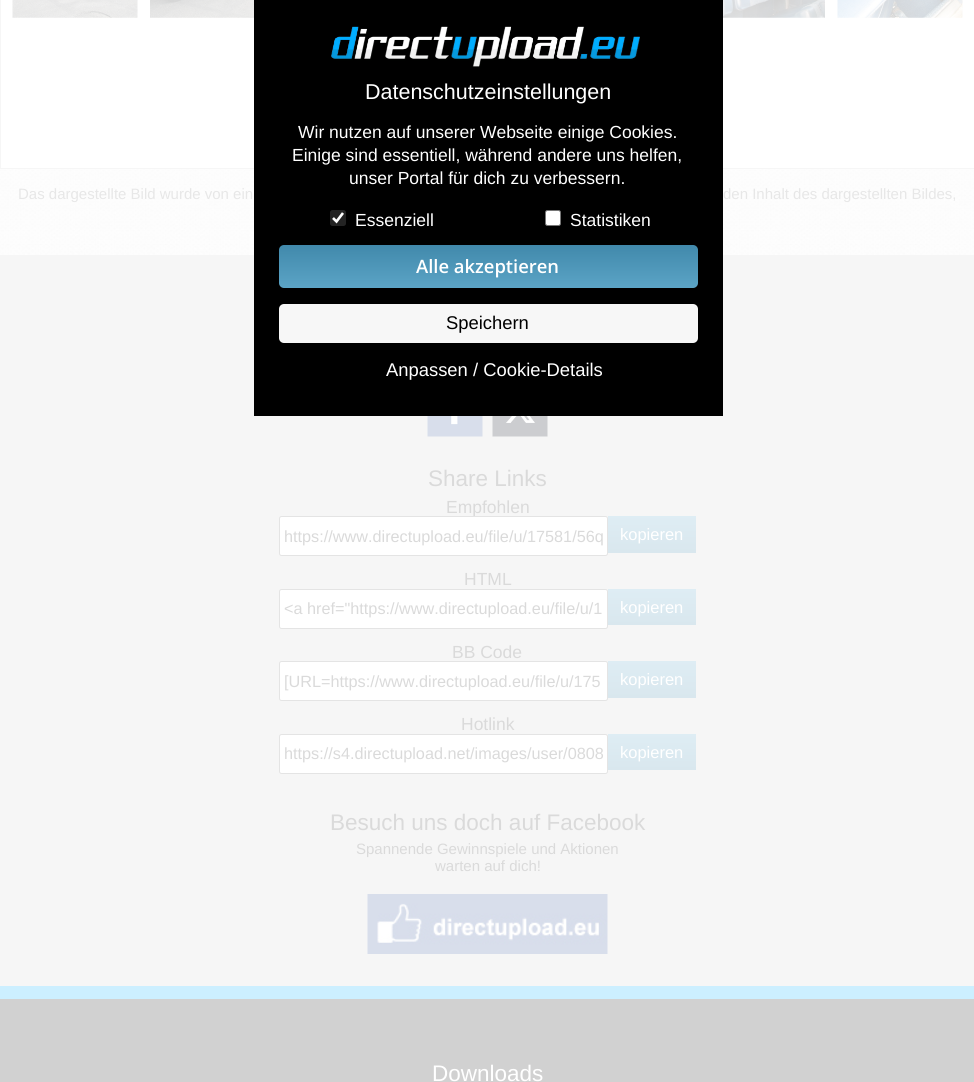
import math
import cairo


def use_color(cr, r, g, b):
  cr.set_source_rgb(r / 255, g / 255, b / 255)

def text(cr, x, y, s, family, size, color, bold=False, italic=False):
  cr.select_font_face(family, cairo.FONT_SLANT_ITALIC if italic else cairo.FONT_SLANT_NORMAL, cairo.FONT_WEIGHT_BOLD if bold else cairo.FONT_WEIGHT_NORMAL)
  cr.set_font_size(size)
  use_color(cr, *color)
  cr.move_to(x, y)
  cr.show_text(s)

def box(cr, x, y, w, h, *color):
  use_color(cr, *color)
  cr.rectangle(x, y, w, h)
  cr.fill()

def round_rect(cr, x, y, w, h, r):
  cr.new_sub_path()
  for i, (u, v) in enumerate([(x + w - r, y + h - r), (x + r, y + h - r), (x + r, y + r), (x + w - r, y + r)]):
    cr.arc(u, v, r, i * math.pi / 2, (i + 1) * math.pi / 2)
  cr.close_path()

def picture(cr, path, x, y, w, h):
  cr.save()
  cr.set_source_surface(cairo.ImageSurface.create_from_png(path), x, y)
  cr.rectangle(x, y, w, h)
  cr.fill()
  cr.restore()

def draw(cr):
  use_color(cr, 255, 255, 255)
  cr.paint()
  picture(cr, "img_01.png", 0, 169, 974, 86)
  cr.rectangle(0.5, -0.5, 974, 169)
  use_color(cr, 246, 246, 246)
  cr.set_line_width(1)
  cr.stroke()
  box(cr, 0, 255, 974, 731, 246, 246, 246)
  box(cr, 254, 0, 469, 416, 0, 0, 0)
  picture(cr, "img_02.png", 331, 26, 309, 41)
  use_color(cr, 35, 35, 35)
  round_rect(cr, 330, 210, 16, 16, 2.5)
  cr.fill()
  cr.new_path()
  cr.move_to(333, 218)
  cr.line_to(336.5, 221.5)
  cr.line_to(343, 213)
  use_color(cr, 255, 255, 255)
  cr.set_line_width(2.6)
  cr.stroke()
  round_rect(cr, 545.5, 210.5, 15, 15, 2)
  cr.fill_preserve()
  use_color(cr, 118, 118, 118)
  cr.set_line_width(1)
  cr.stroke()
  gradient = cairo.LinearGradient(488, 245, 488, 288)
  gradient.add_color_stop_rgba(0, 0.255, 0.537, 0.671, 1)
  gradient.add_color_stop_rgba(1, 0.357, 0.643, 0.776, 1)
  cr.set_source(gradient)
  round_rect(cr, 279, 245, 419, 43, 5)
  cr.fill()
  use_color(cr, 247, 247, 247)
  round_rect(cr, 279, 304, 419, 39, 5)
  cr.fill()
  picture(cr, "img_03.png", 12, 0, 126, 18)
  picture(cr, "img_04.png", 150, 0, 104, 18)
  picture(cr, "img_05.png", 723, 0, 102, 18)
  picture(cr, "img_06.png", 837, 0, 126, 18)
  picture(cr, "img_07.png", 427, 416, 56, 21)
  picture(cr, "img_08.png", 492, 416, 56, 21)
  gradient = cairo.LinearGradient(652, 516, 652, 553)
  gradient.add_color_stop_rgba(0, 0.871, 0.929, 0.957, 1)
  gradient.add_color_stop_rgba(1, 0.851, 0.906, 0.933, 1)
  cr.set_source(gradient)
  cr.rectangle(608, 516, 88, 37)
  cr.fill()
  use_color(cr, 255, 255, 255)
  round_rect(cr, 279.5, 589.5, 328, 39, 2)
  cr.fill_preserve()
  use_color(cr, 228, 228, 228)
  cr.stroke()
  gradient = cairo.LinearGradient(652, 589, 652, 625)
  gradient.add_color_stop_rgba(0, 0.871, 0.929, 0.957, 1)
  gradient.add_color_stop_rgba(1, 0.851, 0.906, 0.933, 1)
  cr.set_source(gradient)
  cr.rectangle(608, 589, 88, 36)
  cr.fill()
  use_color(cr, 255, 255, 255)
  round_rect(cr, 279.5, 661.5, 328, 39, 2)
  cr.fill_preserve()
  use_color(cr, 228, 228, 228)
  cr.stroke()
  gradient = cairo.LinearGradient(652, 661, 652, 698)
  gradient.add_color_stop_rgba(0, 0.871, 0.929, 0.957, 1)
  gradient.add_color_stop_rgba(1, 0.851, 0.906, 0.933, 1)
  cr.set_source(gradient)
  cr.rectangle(608, 661, 88, 37)
  cr.fill()
  use_color(cr, 255, 255, 255)
  round_rect(cr, 279.5, 734.5, 328, 39, 2)
  cr.fill_preserve()
  use_color(cr, 228, 228, 228)
  cr.stroke()
  gradient = cairo.LinearGradient(652, 734, 652, 770)
  gradient.add_color_stop_rgba(0, 0.871, 0.929, 0.957, 1)
  gradient.add_color_stop_rgba(1, 0.851, 0.906, 0.933, 1)
  cr.set_source(gradient)
  cr.rectangle(608, 734, 88, 36)
  cr.fill()
  picture(cr, "img_09.png", 367, 894, 241, 60)
  box(cr, 0, 986, 974, 13, 204, 239, 255)
  box(cr, 0, 999, 974, 83, 209, 209, 209)
  text(cr, 365, 99, "Datenschutzeinstellungen", "Liberation Sans", 21.5, (255, 255, 255))
  text(cr, 298, 138, "Wir nutzen auf unserer Webseite einige Cookies.", "Liberation Sans", 17.5, (255, 255, 255))
  text(cr, 292, 161, "Einige sind essentiell, während andere uns helfen,", "Liberation Sans", 17.5, (255, 255, 255))
  text(cr, 349, 184, "unser Portal für dich zu verbessern.", "Liberation Sans", 17.5, (255, 255, 255))
  text(cr, 355, 226, "Essenziell", "Liberation Sans", 17.5, (255, 255, 255))
  text(cr, 570, 226, "Statistiken", "Liberation Sans", 17.5, (255, 255, 255))
  text(cr, 416, 273, "Alle akzeptieren", "Open Sans SemiBold", 18.4, (255, 255, 255))
  text(cr, 446, 329, "Speichern", "Liberation Sans", 18.4, (0, 0, 0))
  text(cr, 386, 376, "Anpassen / Cookie-Details", "Liberation Sans", 18.4, (255, 255, 255))
  text(cr, 18, 199, "Das dargestellte Bild wurde von ein", "Liberation Sans", 15, (231, 231, 231))
  text(cr, 723, 199, "den Inhalt des dargestellten Bildes,", "Liberation Sans", 15, (231, 231, 231))
  text(cr, 428, 486, "Share Links", "Liberation Sans", 22.5, (218, 218, 218))
  text(cr, 446, 513, "Empfohlen", "Liberation Sans", 17.5, (218, 218, 218))
  use_color(cr, 255, 255, 255)
  round_rect(cr, 279.5, 516.5, 328, 39, 2)
  cr.fill_preserve()
  use_color(cr, 228, 228, 228)
  cr.stroke()
  text(cr, 284, 542, "https://www.directupload.eu/file/u/17581/56q", "Liberation Sans", 16.25, (218, 218, 218))
  text(cr, 620, 540, "kopieren", "Liberation Sans", 16.5, (255, 255, 255))
  text(cr, 464, 585, "HTML", "Liberation Sans", 17.5, (218, 218, 218))
  text(cr, 284, 614, "<a href=\"https://www.directupload.eu/file/u/1", "Liberation Sans", 16.25, (218, 218, 218))
  text(cr, 620, 613, "kopieren", "Liberation Sans", 16.5, (255, 255, 255))
  text(cr, 452, 658, "BB Code", "Liberation Sans", 17.5, (218, 218, 218))
  text(cr, 284, 687, "[URL=https://www.directupload.eu/file/u/175", "Liberation Sans", 16.25, (218, 218, 218))
  text(cr, 620, 685, "kopieren", "Liberation Sans", 16.5, (255, 255, 255))
  text(cr, 461, 730, "Hotlink", "Liberation Sans", 17.5, (218, 218, 218))
  text(cr, 284, 759, "https://s4.directupload.net/images/user/0808", "Liberation Sans", 16.25, (218, 218, 218))
  text(cr, 620, 758, "kopieren", "Liberation Sans", 16.5, (255, 255, 255))
  text(cr, 330, 830, "Besuch uns doch auf Facebook", "Liberation Sans", 22.5, (218, 218, 218))
  text(cr, 356, 854, "Spannende Gewinnspiele und Aktionen", "Liberation Sans", 15, (218, 218, 218))
  text(cr, 435, 871, "warten auf dich!", "Liberation Sans", 15, (218, 218, 218))
  text(cr, 432, 1081, "Downloads", "Liberation Sans", 22.5, (255, 255, 255))


surface = cairo.ImageSurface(cairo.FORMAT_RGB24, 974, 1082)
cr = cairo.Context(surface)
options = cairo.FontOptions()
options.set_hint_metrics(cairo.HINT_METRICS_OFF)
options.set_hint_style(cairo.HINT_STYLE_NONE)
cr.set_font_options(options)
cr.set_miter_limit(4)
draw(cr)
surface.write_to_png("out.png")
